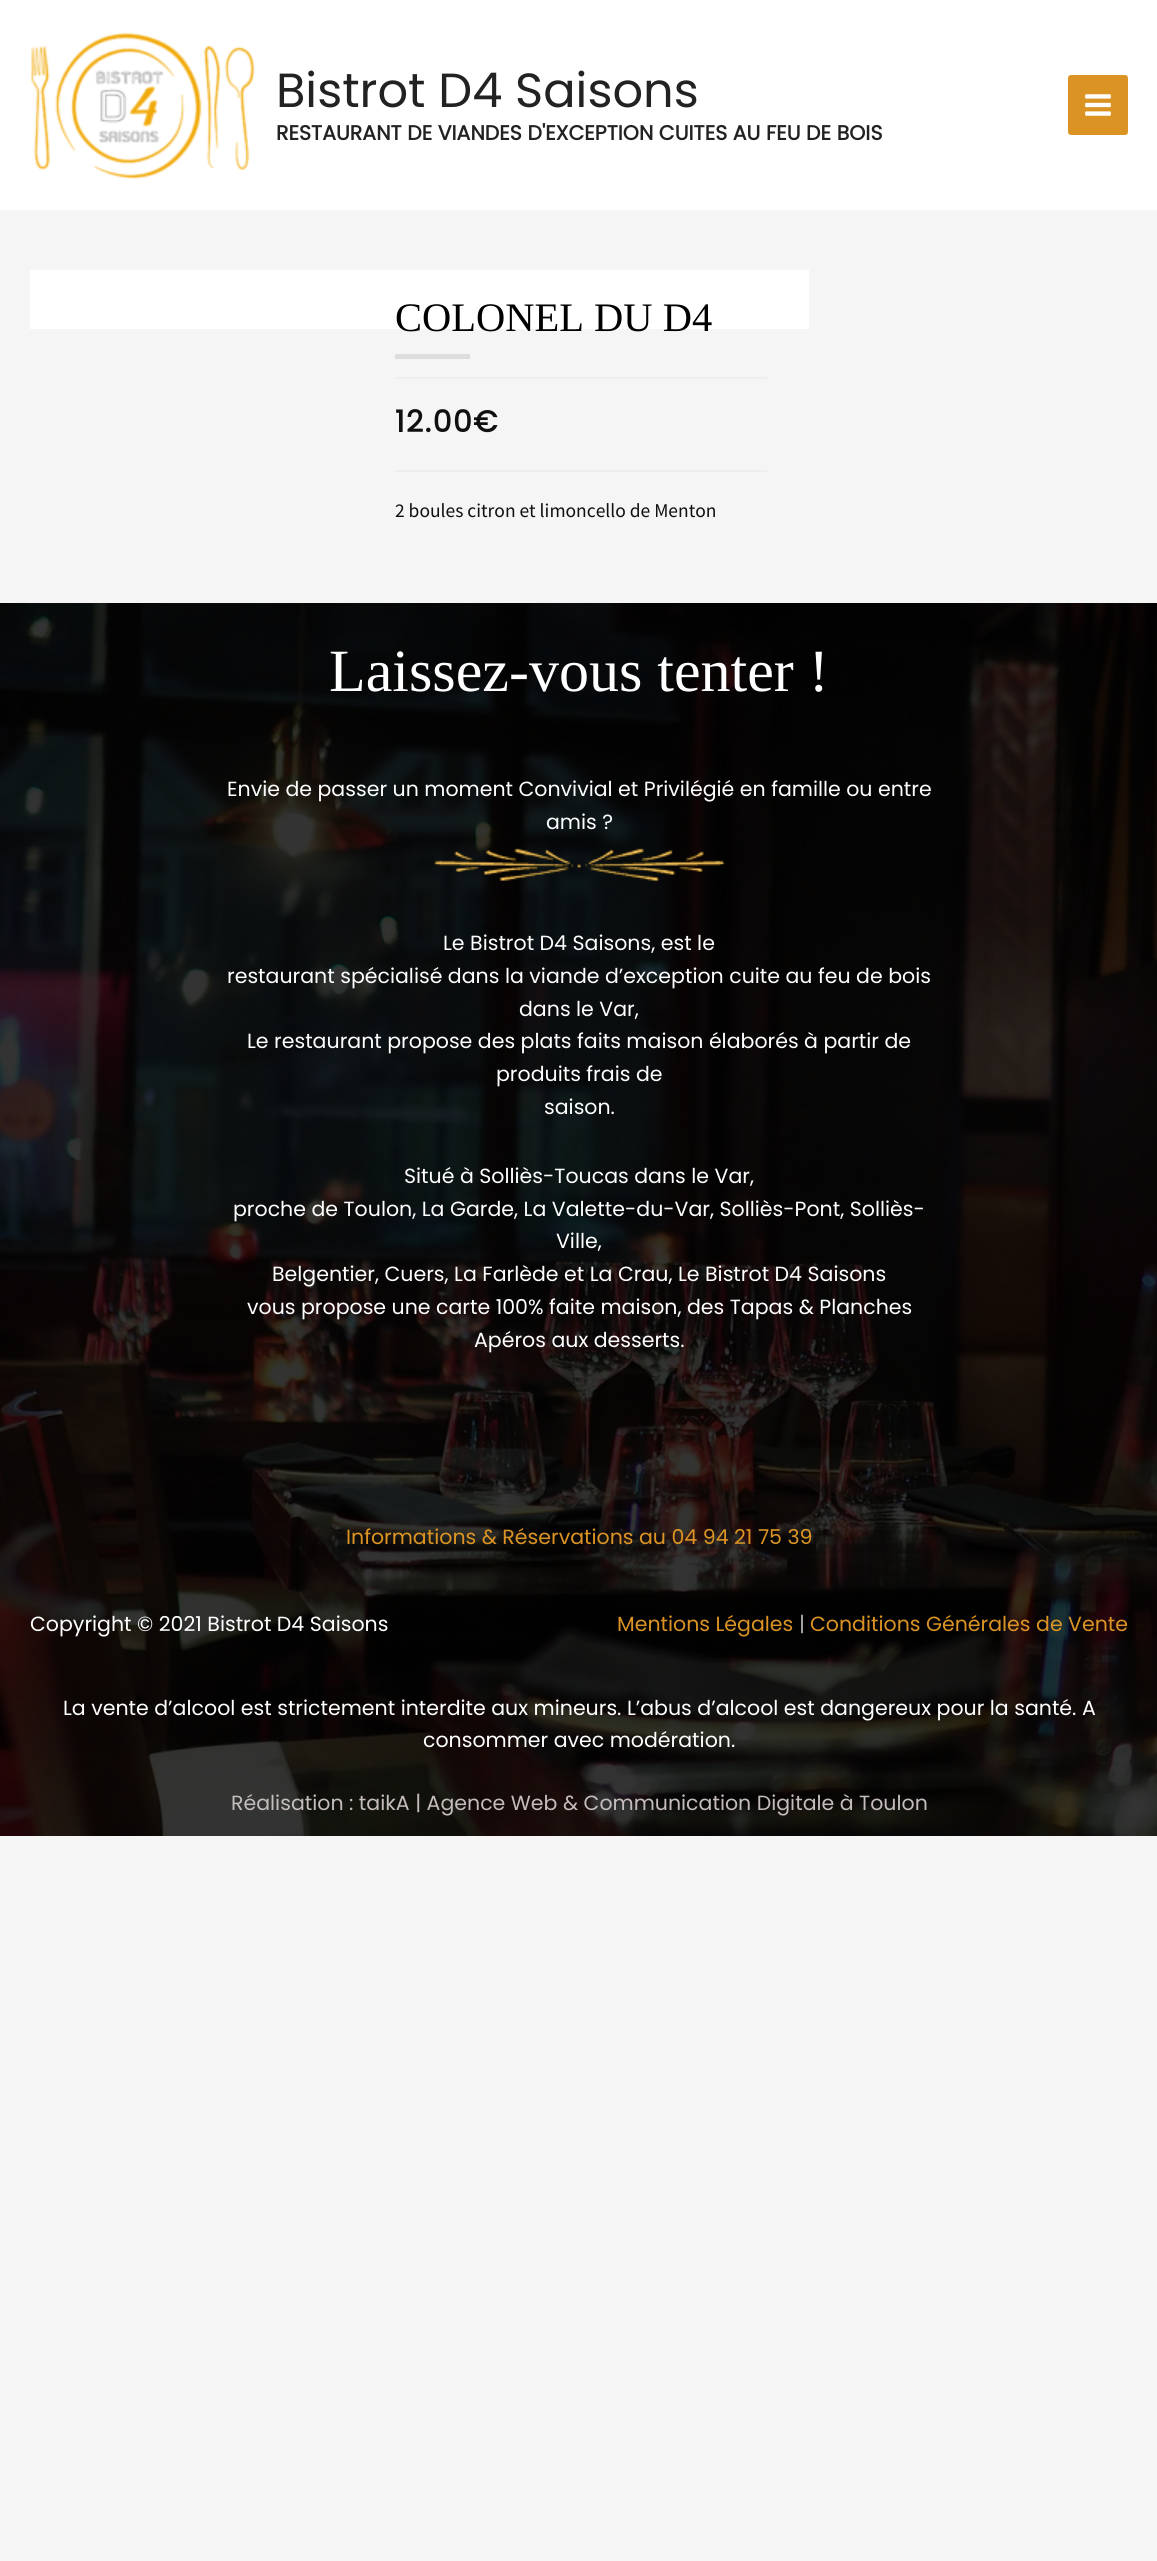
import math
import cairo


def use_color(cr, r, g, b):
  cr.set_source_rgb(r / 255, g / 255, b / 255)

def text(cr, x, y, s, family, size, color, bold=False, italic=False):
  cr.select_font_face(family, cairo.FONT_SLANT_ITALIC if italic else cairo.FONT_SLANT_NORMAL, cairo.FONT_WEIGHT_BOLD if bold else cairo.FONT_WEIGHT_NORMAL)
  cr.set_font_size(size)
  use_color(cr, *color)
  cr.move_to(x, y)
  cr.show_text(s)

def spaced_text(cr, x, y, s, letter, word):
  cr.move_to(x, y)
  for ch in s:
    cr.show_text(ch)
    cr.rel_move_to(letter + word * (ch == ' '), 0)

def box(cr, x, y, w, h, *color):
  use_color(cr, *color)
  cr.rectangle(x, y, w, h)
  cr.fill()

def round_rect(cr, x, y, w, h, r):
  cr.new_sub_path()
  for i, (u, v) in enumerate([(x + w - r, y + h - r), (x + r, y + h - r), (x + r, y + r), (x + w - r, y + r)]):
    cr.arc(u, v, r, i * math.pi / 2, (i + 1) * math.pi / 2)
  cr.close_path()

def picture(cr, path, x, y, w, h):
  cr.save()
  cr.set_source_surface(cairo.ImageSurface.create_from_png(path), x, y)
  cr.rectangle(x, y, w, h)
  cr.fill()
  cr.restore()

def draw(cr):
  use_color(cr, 245, 245, 245)
  cr.paint()
  box(cr, 0, 0, 1157, 210, 255, 255, 255)
  picture(cr, "img_01.png", 30, 32, 225, 147)
  use_color(cr, 219, 148, 35)
  round_rect(cr, 1068, 75, 60, 60, 3)
  cr.fill()
  picture(cr, "img_02.png", 1085, 94, 26, 22)
  box(cr, 30, 270, 779, 59, 255, 255, 255)
  box(cr, 395, 354, 75, 5, 221, 221, 221)
  box(cr, 395, 377, 372, 2, 238, 238, 238)
  box(cr, 395, 470, 372, 2, 238, 238, 238)
  picture(cr, "img_03.png", 0, 603, 1157, 1233)
  picture(cr, "img_04.png", 434, 848, 291, 34)
  text(cr, 276, 107, "Bistrot D4 Saisons", "Poppins", 47.9, (34, 34, 34))
  text(cr, 276, 140, "RESTAURANT DE VIANDES D'EXCEPTION CUITES AU FEU DE BOIS", "Poppins", 20.52, (34, 34, 34), bold=True)
  text(cr, 395, 331, "COLONEL DU D4", "Liberation Serif", 40.5, (0, 0, 0))
  cr.select_font_face("Poppins", cairo.FONT_SLANT_NORMAL, cairo.FONT_WEIGHT_BOLD)
  cr.set_font_size(30)
  use_color(cr, 16, 16, 16)
  spaced_text(cr, 395, 432, "12.00€", 1.5, 0)
  text(cr, 395, 517, "2 boules citron et limoncello de Menton", "Source Sans Pro", 19.5, (16, 16, 16))
  text(cr, 329, 691, "Laissez-vous tenter !", "Liberation Serif", 60, (255, 255, 255))
  text(cr, 227, 796, "Envie de passer un moment Convivial et Privilégié en famille ou entre", "Poppins", 20.52, (255, 255, 255))
  text(cr, 546, 829, "amis ?", "Poppins", 20.52, (255, 255, 255))
  text(cr, 443, 950, "Le Bistrot D4 Saisons, est le", "Poppins", 20.52, (255, 255, 255))
  text(cr, 227, 983, "restaurant spécialisé dans la viande d’exception cuite au feu de bois", "Poppins", 20.52, (255, 255, 255))
  text(cr, 519, 1016, "dans le Var,", "Poppins", 20.52, (255, 255, 255))
  text(cr, 247, 1048, "Le restaurant propose des plats faits maison élaborés à partir de", "Poppins", 20.52, (255, 255, 255))
  text(cr, 496, 1081, "produits frais de", "Poppins", 20.52, (255, 255, 255))
  text(cr, 544, 1114, "saison.", "Poppins", 20.52, (255, 255, 255))
  text(cr, 404, 1183, "Situé à Solliès-Toucas dans le Var,", "Poppins", 20.52, (255, 255, 255))
  text(cr, 233, 1216, "proche de Toulon, La Garde, La Valette-du-Var, Solliès-Pont, Solliès-", "Poppins", 20.52, (255, 255, 255))
  text(cr, 556, 1248, "Ville,", "Poppins", 20.52, (255, 255, 255))
  text(cr, 272, 1281, "Belgentier, Cuers, La Farlède et La Crau, Le Bistrot D4 Saisons", "Poppins", 20.52, (255, 255, 255))
  text(cr, 247, 1314, "vous propose une carte 100% faite maison, des Tapas & Planches", "Poppins", 20.52, (255, 255, 255))
  text(cr, 474, 1347, "Apéros aux desserts.", "Poppins", 20.52, (255, 255, 255))
  text(cr, 346, 1544, "Informations & Réservations au 04 94 21 75 39", "Poppins", 20.52, (219, 148, 35))
  text(cr, 30, 1631, "Copyright © 2021 Bistrot D4 Saisons", "Poppins", 20.52, (255, 255, 255))
  text(cr, 617, 1631, "Mentions Légales", "Poppins", 20.52, (219, 148, 35))
  text(cr, 799, 1631, "|", "Poppins", 20.52, (170, 170, 170))
  text(cr, 810, 1631, "Conditions Générales de Vente", "Poppins", 20.52, (219, 148, 35))
  text(cr, 63, 1715, "La vente d’alcool est strictement interdite aux mineurs. L’abus d’alcool est dangereux pour la santé. A", "Poppins", 20.52, (255, 255, 255))
  text(cr, 423, 1747, "consommer avec modération.", "Poppins", 20.52, (255, 255, 255))
  text(cr, 231, 1810, "Réalisation : taikA | Agence Web & Communication Digitale à Toulon", "Poppins", 20.52, (197, 189, 189))


surface = cairo.ImageSurface(cairo.FORMAT_RGB24, 1157, 2561)
cr = cairo.Context(surface)
options = cairo.FontOptions()
options.set_hint_metrics(cairo.HINT_METRICS_OFF)
options.set_hint_style(cairo.HINT_STYLE_NONE)
cr.set_font_options(options)
cr.set_miter_limit(4)
draw(cr)
surface.write_to_png("out.png")
